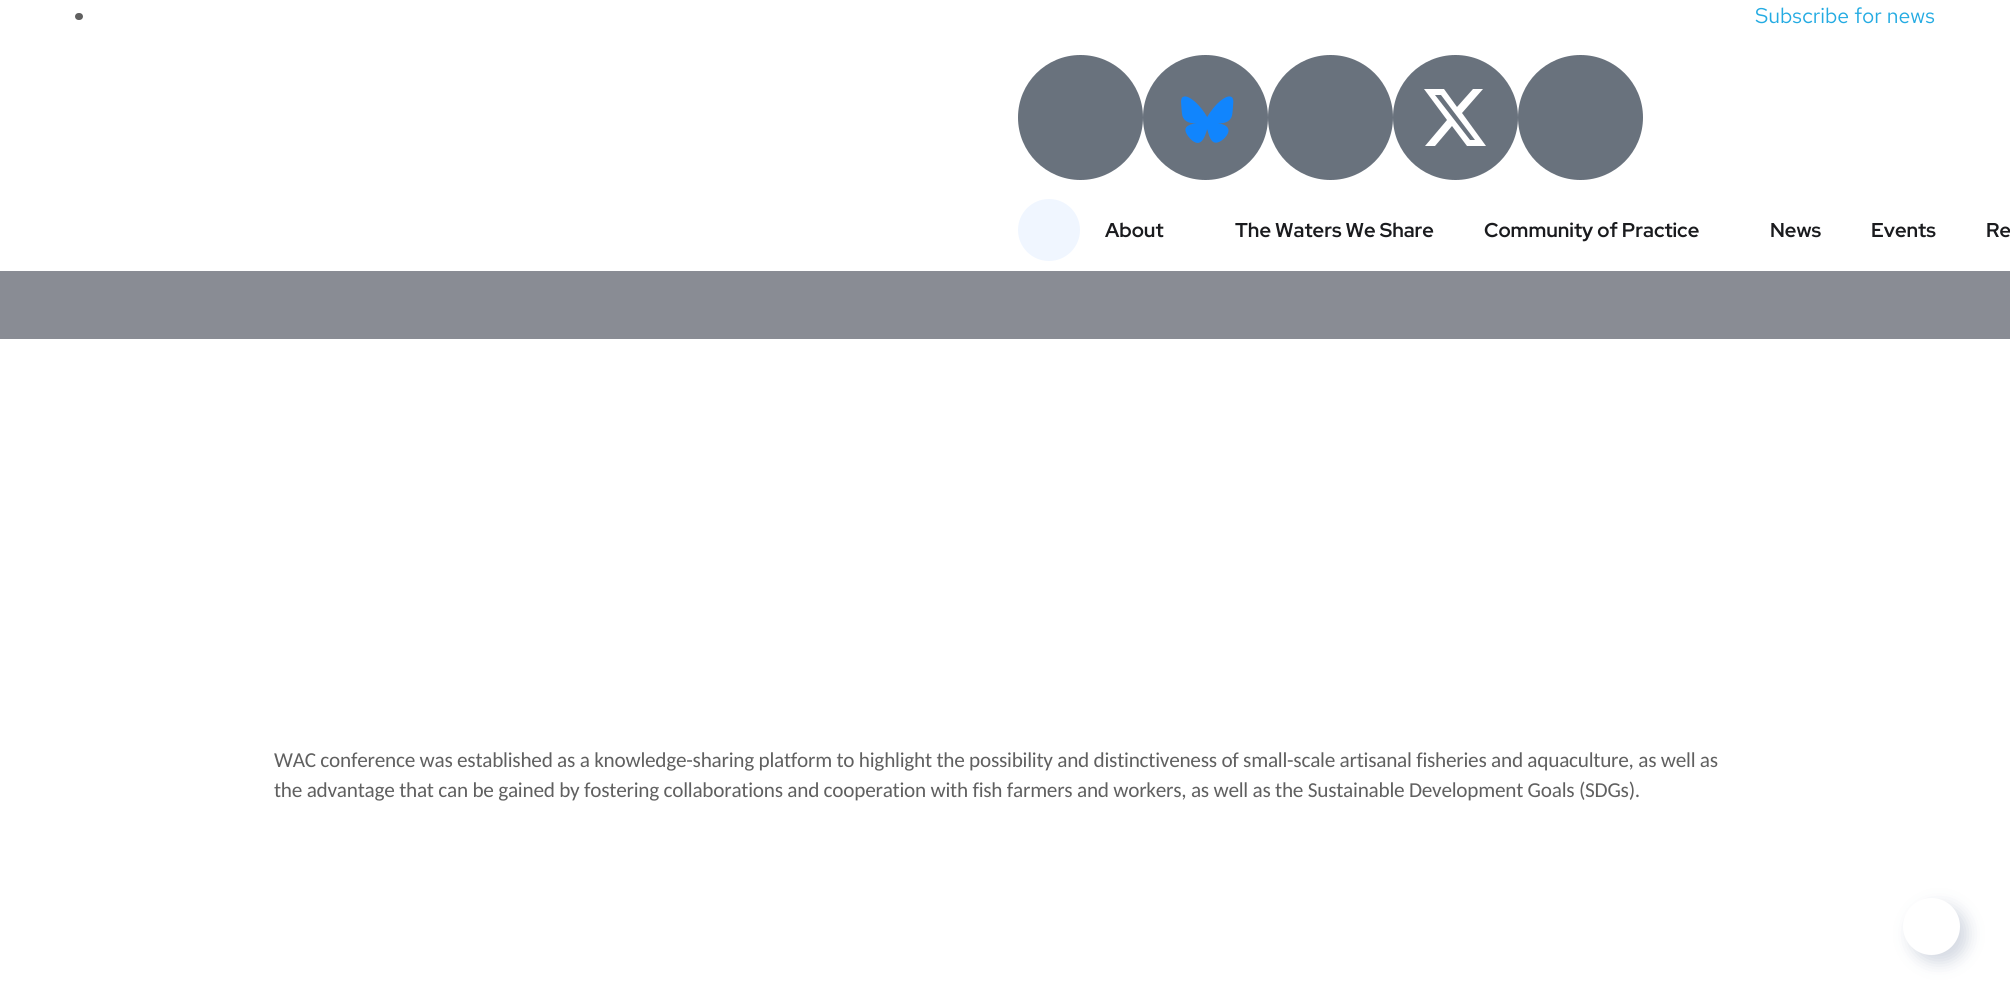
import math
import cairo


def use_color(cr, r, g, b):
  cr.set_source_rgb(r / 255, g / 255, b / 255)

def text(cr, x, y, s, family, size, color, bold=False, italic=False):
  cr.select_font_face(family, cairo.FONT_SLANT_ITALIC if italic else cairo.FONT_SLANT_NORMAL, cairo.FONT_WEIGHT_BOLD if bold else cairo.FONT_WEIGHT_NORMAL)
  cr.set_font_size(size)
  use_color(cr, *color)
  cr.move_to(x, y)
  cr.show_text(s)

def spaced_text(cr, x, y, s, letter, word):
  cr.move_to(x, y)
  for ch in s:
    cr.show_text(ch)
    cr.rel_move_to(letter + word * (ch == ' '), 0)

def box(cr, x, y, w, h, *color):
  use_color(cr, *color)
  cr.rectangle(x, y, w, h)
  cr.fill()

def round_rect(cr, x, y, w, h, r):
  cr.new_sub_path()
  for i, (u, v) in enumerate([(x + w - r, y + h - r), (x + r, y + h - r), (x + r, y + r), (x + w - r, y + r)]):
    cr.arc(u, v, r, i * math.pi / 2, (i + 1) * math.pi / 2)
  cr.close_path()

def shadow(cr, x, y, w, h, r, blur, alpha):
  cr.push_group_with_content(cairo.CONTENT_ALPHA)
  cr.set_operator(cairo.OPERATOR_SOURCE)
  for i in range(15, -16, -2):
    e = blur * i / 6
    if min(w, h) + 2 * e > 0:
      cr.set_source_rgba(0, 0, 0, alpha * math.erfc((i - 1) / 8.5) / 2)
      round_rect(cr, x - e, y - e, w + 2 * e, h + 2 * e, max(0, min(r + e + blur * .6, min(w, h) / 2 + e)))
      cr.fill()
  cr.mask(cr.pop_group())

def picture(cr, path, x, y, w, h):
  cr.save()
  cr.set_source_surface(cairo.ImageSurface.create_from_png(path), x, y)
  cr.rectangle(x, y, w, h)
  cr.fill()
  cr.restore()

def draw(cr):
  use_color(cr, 255, 255, 255)
  cr.paint()
  use_color(cr, 96, 96, 96)
  round_rect(cr, 75, 13, 8, 7, 3.5)
  cr.fill()
  use_color(cr, 105, 114, 125)
  cr.arc(1080.5, 117.5, 62.5, 0, 2 * math.pi)
  cr.fill()
  cr.arc(1205.5, 117.5, 62.5, 0, 2 * math.pi)
  cr.fill()
  picture(cr, "img_01.png", 1181, 96, 53, 47)
  cr.arc(1330.5, 117.5, 62.5, 0, 2 * math.pi)
  cr.fill()
  cr.arc(1455.5, 117.5, 62.5, 0, 2 * math.pi)
  cr.fill()
  use_color(cr, 255, 255, 255)
  cr.new_path()
  cr.move_to(1473, 89)
  cr.line_to(1483, 89)
  cr.line_to(1462, 113)
  cr.line_to(1486, 146)
  cr.line_to(1467, 146)
  cr.line_to(1452, 126)
  cr.line_to(1435, 146)
  cr.line_to(1425, 146)
  cr.line_to(1447, 120)
  cr.line_to(1424, 89)
  cr.line_to(1444, 89)
  cr.line_to(1457, 107)
  cr.close_path()
  cr.move_to(1470, 140)
  cr.line_to(1475, 140)
  cr.line_to(1441, 95)
  cr.line_to(1435, 95)
  cr.close_path()
  cr.fill()
  use_color(cr, 105, 114, 125)
  cr.arc(1580.5, 117.5, 62.5, 0, 2 * math.pi)
  cr.fill()
  use_color(cr, 240, 246, 255)
  cr.arc(1049, 230, 31, 0, 2 * math.pi)
  cr.fill()
  box(cr, 0, 271, 2010, 68, 137, 140, 148)
  use_color(cr, 42, 67, 113)
  shadow(cr, 1910, 905, 58, 58, 29, 8, 0.2)
  use_color(cr, 255, 255, 255)
  cr.arc(1931.5, 926.5, 28.5, 0, 2 * math.pi)
  cr.fill()
  text(cr, 1755, 23, "Subscribe for news", "Red Hat Text", 21.25, (36, 171, 226))
  text(cr, 1105, 237, "About", "Red Hat Display", 20, (26, 27, 30), bold=True)
  text(cr, 1235, 237, "The Waters We Share", "Red Hat Display", 20, (26, 27, 30), bold=True)
  text(cr, 1484, 237, "Community of Practice", "Red Hat Display", 20, (26, 27, 30), bold=True)
  text(cr, 1770, 237, "News", "Red Hat Display", 20, (26, 27, 30), bold=True)
  text(cr, 1871, 237, "Events", "Red Hat Display", 20, (26, 27, 30), bold=True)
  text(cr, 1986, 237, "Re", "Red Hat Display", 20, (26, 27, 30), bold=True)
  cr.select_font_face("Carlito")
  cr.set_font_size(21.25)
  use_color(cr, 96, 96, 96)
  spaced_text(cr, 274, 767, "WAC conference was established as a knowledge-sharing platform to highlight the possibility and distinctiveness of small-scale artisanal fisheries and aquaculture, as well as", -0.25, 0)
  spaced_text(cr, 274, 797, "the advantage that can be gained by fostering collaborations and cooperation with fish farmers and workers, as well as the Sustainable Development Goals (SDGs).", -0.25, 0)


surface = cairo.ImageSurface(cairo.FORMAT_RGB24, 2010, 1005)
cr = cairo.Context(surface)
options = cairo.FontOptions()
options.set_hint_metrics(cairo.HINT_METRICS_OFF)
options.set_hint_style(cairo.HINT_STYLE_NONE)
cr.set_font_options(options)
cr.set_miter_limit(4)
draw(cr)
surface.write_to_png("out.png")
